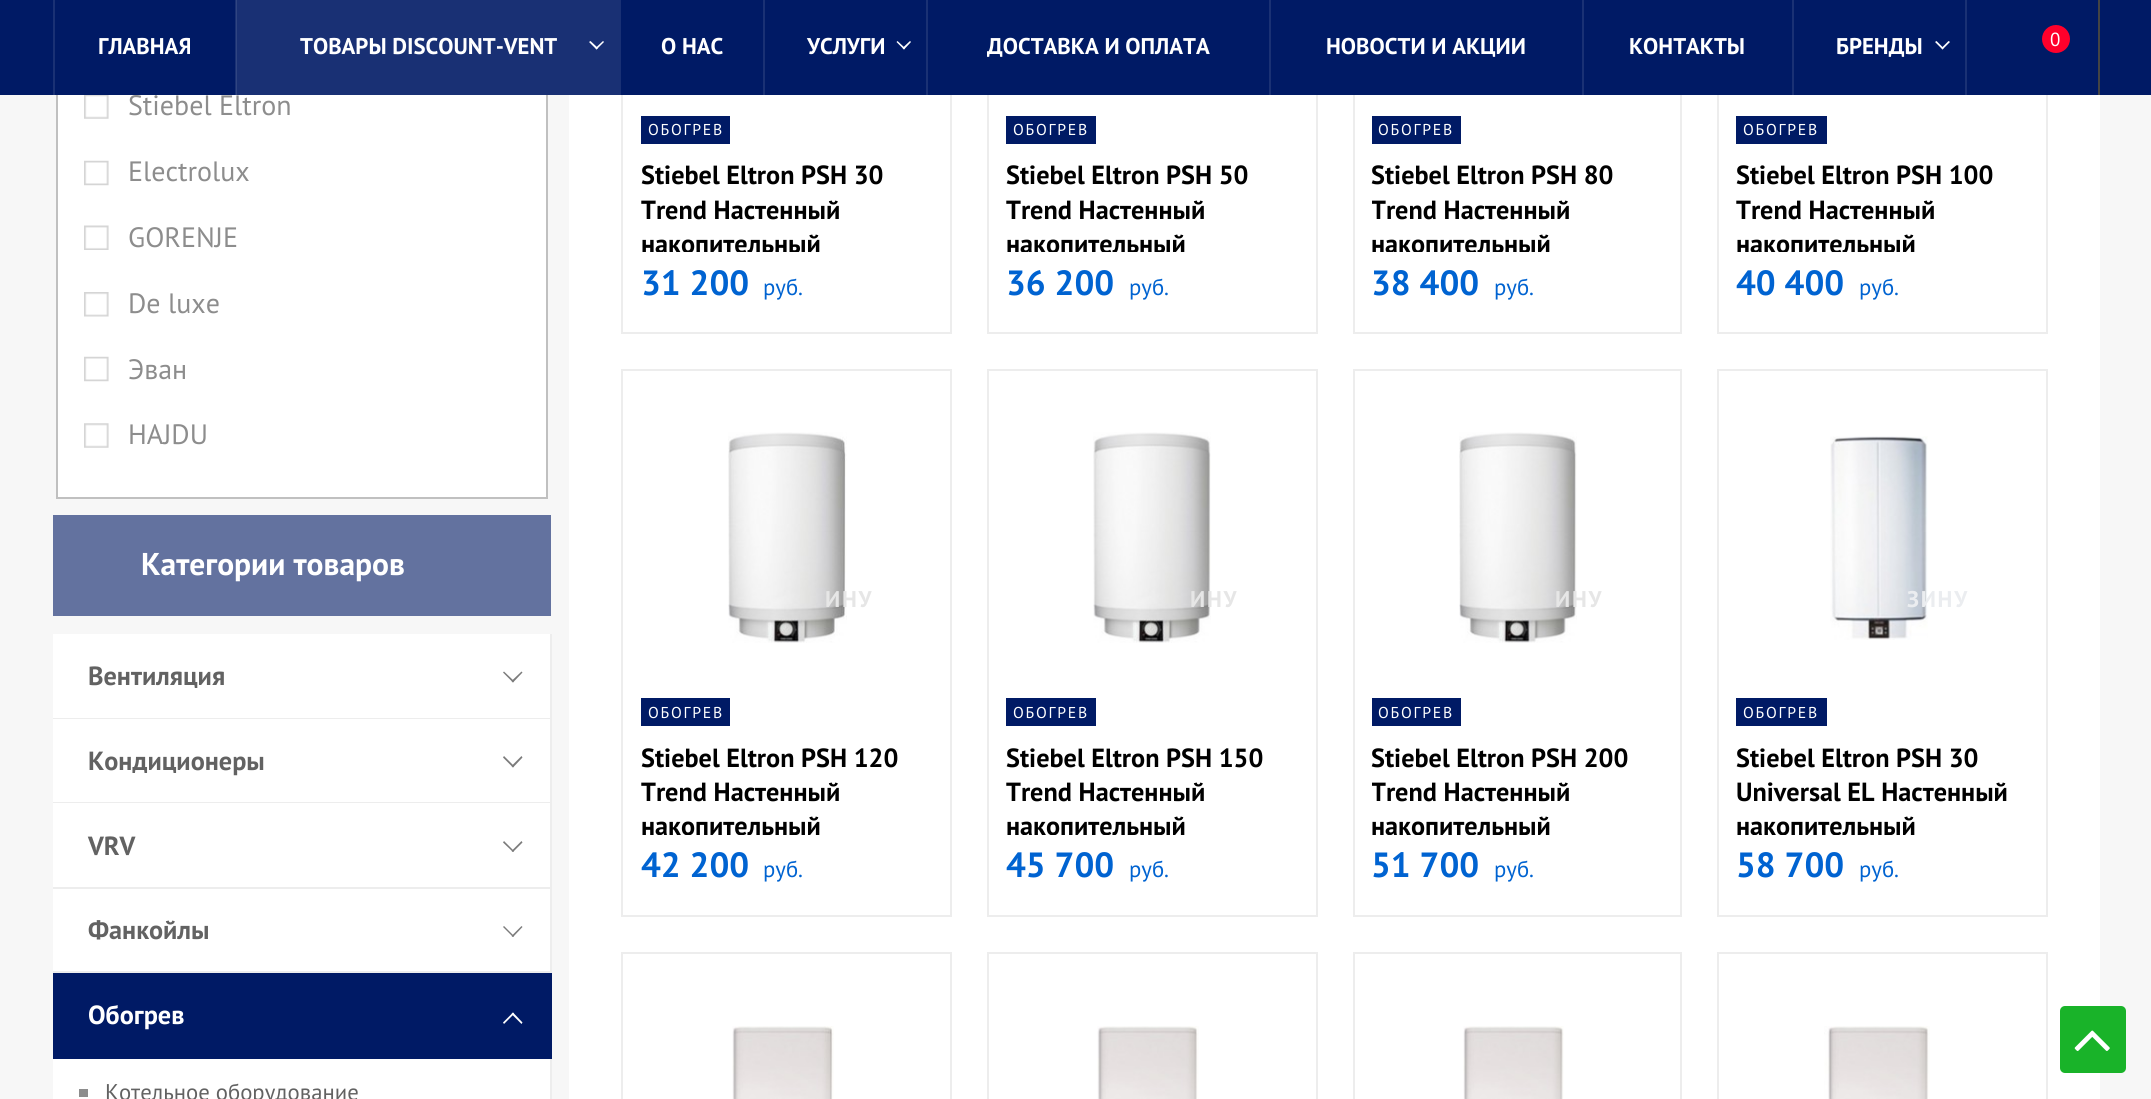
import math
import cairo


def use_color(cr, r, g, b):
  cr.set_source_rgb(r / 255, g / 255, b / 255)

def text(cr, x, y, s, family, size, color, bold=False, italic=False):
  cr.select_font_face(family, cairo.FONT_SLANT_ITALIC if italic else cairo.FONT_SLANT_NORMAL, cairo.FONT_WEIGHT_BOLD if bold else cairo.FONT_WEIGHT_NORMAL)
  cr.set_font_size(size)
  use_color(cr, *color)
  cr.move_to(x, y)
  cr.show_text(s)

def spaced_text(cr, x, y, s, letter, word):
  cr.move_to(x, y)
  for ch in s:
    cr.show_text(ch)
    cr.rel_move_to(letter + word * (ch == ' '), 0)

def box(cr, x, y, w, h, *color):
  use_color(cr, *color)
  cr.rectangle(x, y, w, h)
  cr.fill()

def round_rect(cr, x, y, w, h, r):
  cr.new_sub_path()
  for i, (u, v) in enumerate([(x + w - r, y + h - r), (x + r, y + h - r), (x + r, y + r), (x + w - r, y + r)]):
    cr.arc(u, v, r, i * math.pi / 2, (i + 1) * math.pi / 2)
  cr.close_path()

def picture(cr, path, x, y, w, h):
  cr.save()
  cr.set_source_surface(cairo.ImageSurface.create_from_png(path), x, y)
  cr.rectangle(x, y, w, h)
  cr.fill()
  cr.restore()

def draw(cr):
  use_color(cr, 247, 247, 247)
  cr.paint()
  box(cr, 58, 95, 488, 402, 255, 255, 255)
  cr.rectangle(57, 66, 490, 432)
  use_color(cr, 192, 192, 192)
  cr.stroke()
  box(cr, 569, 95, 1531, 1004, 255, 255, 255)
  cr.rectangle(622, -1, 329, 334)
  use_color(cr, 237, 237, 237)
  cr.stroke()
  cr.rectangle(988, -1, 329, 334)
  cr.stroke()
  cr.rectangle(1354, -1, 327, 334)
  cr.stroke()
  cr.rectangle(1718, -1, 329, 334)
  cr.stroke()
  box(cr, 0, 0, 2151, 95, 0, 26, 101)
  box(cr, 235, 0, 2, 95, 26, 49, 116)
  box(cr, 53, 0, 2, 95, 26, 49, 116)
  cr.set_source_rgba(1, 1, 1, 0.1)
  cr.rectangle(236, 0, 385, 95)
  cr.fill()
  use_color(cr, 255, 255, 255)
  cr.new_path()
  cr.move_to(603, 41)
  cr.line_to(604, 42)
  cr.line_to(596.5, 49.5)
  cr.line_to(595.5, 48)
  cr.close_path()
  cr.fill()
  cr.new_path()
  cr.move_to(590.5, 41)
  cr.line_to(598, 48)
  cr.line_to(596.5, 49.5)
  cr.line_to(589, 42)
  cr.close_path()
  cr.fill()
  box(cr, 763, 0, 2, 95, 26, 49, 116)
  box(cr, 926, 0, 2, 95, 26, 49, 116)
  use_color(cr, 255, 255, 255)
  cr.new_path()
  cr.move_to(910, 41)
  cr.line_to(911, 42)
  cr.line_to(904, 49.5)
  cr.line_to(902.5, 48)
  cr.close_path()
  cr.fill()
  cr.new_path()
  cr.move_to(897.5, 41)
  cr.line_to(905, 48)
  cr.line_to(904, 49.5)
  cr.line_to(896.5, 42)
  cr.close_path()
  cr.fill()
  box(cr, 1269, 0, 2, 95, 26, 49, 116)
  box(cr, 1582, 0, 2, 95, 26, 49, 116)
  box(cr, 1792, 0, 2, 95, 26, 49, 116)
  box(cr, 1965, 0, 2, 95, 26, 49, 116)
  use_color(cr, 255, 255, 255)
  cr.new_path()
  cr.move_to(1948.5, 41)
  cr.line_to(1950, 42)
  cr.line_to(1942.5, 49.5)
  cr.line_to(1941.5, 48)
  cr.close_path()
  cr.fill()
  cr.new_path()
  cr.move_to(1936.5, 41)
  cr.line_to(1943.5, 48)
  cr.line_to(1942.5, 49.5)
  cr.line_to(1935, 42)
  cr.close_path()
  cr.fill()
  box(cr, 2098, 0, 2, 95, 68, 68, 68)
  use_color(cr, 255, 0, 43)
  cr.arc(2056, 39, 14, 0, 2 * math.pi)
  cr.fill()
  picture(cr, "img_01.png", 84, 95, 25, 24)
  picture(cr, "img_02.png", 84, 160, 25, 26)
  picture(cr, "img_03.png", 84, 225, 25, 25)
  picture(cr, "img_04.png", 84, 292, 25, 25)
  picture(cr, "img_02.png", 84, 356, 25, 26)
  picture(cr, "img_05.png", 84, 423, 25, 25)
  box(cr, 53, 515, 498, 101, 99, 114, 159)
  box(cr, 53, 634, 497, 84, 255, 255, 255)
  box(cr, 550, 634, 2, 339, 237, 237, 237)
  box(cr, 53, 718, 498, 1, 237, 237, 237)
  use_color(cr, 123, 123, 123)
  cr.new_path()
  cr.move_to(521.5, 671.5)
  cr.line_to(522.5, 672.5)
  cr.line_to(513, 682.5)
  cr.line_to(511.5, 681)
  cr.close_path()
  cr.fill()
  cr.new_path()
  cr.move_to(504, 671.5)
  cr.line_to(514, 681)
  cr.line_to(513, 682.5)
  cr.line_to(503, 672.5)
  cr.close_path()
  cr.fill()
  box(cr, 53, 719, 497, 83, 255, 255, 255)
  box(cr, 53, 802, 498, 1, 237, 237, 237)
  use_color(cr, 123, 123, 123)
  cr.new_path()
  cr.move_to(521.5, 756)
  cr.line_to(522.5, 757.5)
  cr.line_to(513, 767.5)
  cr.line_to(511.5, 766)
  cr.close_path()
  cr.fill()
  cr.new_path()
  cr.move_to(504, 756)
  cr.line_to(514, 766)
  cr.line_to(513, 767.5)
  cr.line_to(503, 757.5)
  cr.close_path()
  cr.fill()
  box(cr, 53, 803, 497, 84, 255, 255, 255)
  box(cr, 53, 887, 498, 2, 237, 237, 237)
  use_color(cr, 123, 123, 123)
  cr.new_path()
  cr.move_to(521.5, 841)
  cr.line_to(522.5, 842.5)
  cr.line_to(513, 852)
  cr.line_to(511.5, 851)
  cr.close_path()
  cr.fill()
  cr.new_path()
  cr.move_to(504, 841)
  cr.line_to(514, 851)
  cr.line_to(513, 852)
  cr.line_to(503, 842.5)
  cr.close_path()
  cr.fill()
  box(cr, 53, 889, 497, 82, 255, 255, 255)
  box(cr, 53, 971, 498, 2, 237, 237, 237)
  use_color(cr, 123, 123, 123)
  cr.new_path()
  cr.move_to(521.5, 926)
  cr.line_to(522.5, 927)
  cr.line_to(513, 937)
  cr.line_to(511.5, 936)
  cr.close_path()
  cr.fill()
  cr.new_path()
  cr.move_to(504, 926)
  cr.line_to(514, 936)
  cr.line_to(513, 937)
  cr.line_to(503, 927)
  cr.close_path()
  cr.fill()
  box(cr, 53, 973, 499, 86, 0, 26, 101)
  use_color(cr, 255, 255, 255)
  cr.new_path()
  cr.move_to(504, 1024)
  cr.line_to(503, 1022.5)
  cr.line_to(513, 1012.5)
  cr.line_to(514, 1014)
  cr.close_path()
  cr.fill()
  cr.new_path()
  cr.move_to(521.5, 1024)
  cr.line_to(511.5, 1014)
  cr.line_to(513, 1012.5)
  cr.line_to(522.5, 1022.5)
  cr.close_path()
  cr.fill()
  box(cr, 53, 1059, 497, 40, 255, 255, 255)
  box(cr, 550, 1059, 2, 40, 237, 237, 237)
  box(cr, 79, 1089, 9, 8, 141, 141, 141)
  box(cr, 641, 116, 89, 28, 0, 26, 101)
  box(cr, 1006, 116, 90, 28, 0, 26, 101)
  box(cr, 1372, 116, 89, 28, 0, 26, 101)
  box(cr, 1736, 116, 91, 28, 0, 26, 101)
  cr.rectangle(622, 370, 329, 546)
  use_color(cr, 237, 237, 237)
  cr.stroke()
  picture(cr, "img_06.png", 728, 432, 119, 211)
  box(cr, 641, 698, 89, 28, 0, 26, 101)
  cr.rectangle(988, 370, 329, 546)
  use_color(cr, 237, 237, 237)
  cr.stroke()
  picture(cr, "img_07.png", 1093, 432, 118, 211)
  box(cr, 1006, 698, 90, 28, 0, 26, 101)
  cr.rectangle(1354, 370, 327, 546)
  use_color(cr, 237, 237, 237)
  cr.stroke()
  picture(cr, "img_08.png", 1459, 432, 118, 211)
  box(cr, 1372, 698, 89, 28, 0, 26, 101)
  cr.rectangle(1718, 370, 329, 546)
  use_color(cr, 237, 237, 237)
  cr.stroke()
  picture(cr, "img_09.png", 1830, 436, 98, 204)
  box(cr, 1736, 698, 91, 28, 0, 26, 101)
  cr.rectangle(622, 953, 329, 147)
  use_color(cr, 237, 237, 237)
  cr.stroke()
  picture(cr, "img_10.png", 732, 1026, 102, 73)
  cr.rectangle(988, 953, 329, 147)
  cr.stroke()
  picture(cr, "img_11.png", 1097, 1026, 102, 73)
  cr.rectangle(1354, 953, 327, 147)
  cr.stroke()
  picture(cr, "img_12.png", 1463, 1026, 101, 73)
  cr.rectangle(1718, 953, 329, 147)
  cr.stroke()
  picture(cr, "img_13.png", 1824, 1026, 106, 73)
  use_color(cr, 25, 179, 41)
  round_rect(cr, 2060, 1006, 66, 67, 5)
  cr.fill()
  picture(cr, "img_14.png", 2074, 1030, 36, 21)
  text(cr, 98, 54, "ГЛАВНАЯ", "PT Sans", 22.75, (255, 255, 255), bold=True)
  text(cr, 300, 54, "ТОВАРЫ DISCOUNT-VENT", "PT Sans", 22.75, (255, 255, 255), bold=True)
  text(cr, 661, 54, "О НАС", "PT Sans", 22.75, (255, 255, 255), bold=True)
  text(cr, 807, 54, "УСЛУГИ", "PT Sans", 22.75, (255, 255, 255), bold=True)
  text(cr, 987, 54, "ДОСТАВКА И ОПЛАТА", "PT Sans", 22.75, (255, 255, 255), bold=True)
  text(cr, 1326, 54, "НОВОСТИ И АКЦИИ", "PT Sans", 22.75, (255, 255, 255), bold=True)
  text(cr, 1629, 54, "КОНТАКТЫ", "PT Sans", 22.75, (255, 255, 255), bold=True)
  text(cr, 1836, 54, "БРЕНДЫ", "PT Sans", 22.75, (255, 255, 255), bold=True)
  text(cr, 2050, 46, "0", "PT Sans", 19, (255, 255, 255))
  text(cr, 128, 115, "Stiebel Eltron", "PT Sans", 28, (141, 141, 141))
  text(cr, 128, 181, "Electrolux", "PT Sans", 28, (141, 141, 141))
  text(cr, 128, 247, "GORENJE", "PT Sans", 28, (141, 141, 141))
  text(cr, 128, 313, "De luxe", "PT Sans", 28, (141, 141, 141))
  text(cr, 128, 379, "Эван", "PT Sans", 28, (141, 141, 141))
  text(cr, 128, 444, "HAJDU", "PT Sans", 28, (141, 141, 141))
  text(cr, 141, 575, "Категории товаров", "PT Sans", 31.5, (255, 255, 255), bold=True)
  text(cr, 88, 685, "Вентиляция", "PT Sans", 26.25, (98, 98, 98), bold=True)
  text(cr, 88, 770, "Кондиционеры", "PT Sans", 26.25, (98, 98, 98), bold=True)
  text(cr, 88, 855, "VRV", "PT Sans", 26.25, (98, 98, 98), bold=True)
  text(cr, 88, 939, "Фанкойлы", "PT Sans", 26.25, (98, 98, 98), bold=True)
  text(cr, 88, 1024, "Обогрев", "PT Sans", 26.25, (255, 255, 255), bold=True)
  text(cr, 105, 1100, "Котельное оборудование", "PT Sans", 22.75, (98, 98, 98))
  cr.set_font_size(15.75)
  use_color(cr, 255, 255, 255)
  spaced_text(cr, 648, 135, "ОБОГРЕВ", 1.75, 0)
  text(cr, 641, 184, "Stiebel Eltron PSH 30", "PT Sans", 26.25, (0, 0, 0), bold=True)
  cr.save()
  cr.rectangle(641, 158, 292, 94)
  cr.clip()
  text(cr, 641, 219, "Trend Настенный", "PT Sans", 26.25, (0, 0, 0), bold=True)
  text(cr, 641, 253, "накопительный", "PT Sans", 26.25, (0, 0, 0), bold=True)
  cr.restore()
  text(cr, 641, 295, "31 200", "PT Sans", 35, (0, 99, 209), bold=True)
  text(cr, 763, 295, "руб.", "PT Sans", 22.75, (0, 99, 209))
  cr.set_font_size(15.75)
  use_color(cr, 255, 255, 255)
  spaced_text(cr, 1013, 135, "ОБОГРЕВ", 1.75, 0)
  text(cr, 1006, 184, "Stiebel Eltron PSH 50", "PT Sans", 26.25, (0, 0, 0), bold=True)
  text(cr, 1006, 219, "Trend Настенный", "PT Sans", 26.25, (0, 0, 0), bold=True)
  cr.save()
  cr.rectangle(1006, 158, 293, 94)
  cr.clip()
  text(cr, 1006, 253, "накопительный", "PT Sans", 26.25, (0, 0, 0), bold=True)
  cr.restore()
  text(cr, 1006, 295, "36 200", "PT Sans", 35, (0, 99, 209), bold=True)
  text(cr, 1129, 295, "руб.", "PT Sans", 22.75, (0, 99, 209))
  cr.set_font_size(15.75)
  use_color(cr, 255, 255, 255)
  spaced_text(cr, 1378, 135, "ОБОГРЕВ", 1.75, 0)
  text(cr, 1371, 184, "Stiebel Eltron PSH 80", "PT Sans", 26.25, (0, 0, 0), bold=True)
  cr.save()
  cr.rectangle(1372, 158, 291, 94)
  cr.clip()
  text(cr, 1371, 219, "Trend Настенный", "PT Sans", 26.25, (0, 0, 0), bold=True)
  text(cr, 1371, 253, "накопительный", "PT Sans", 26.25, (0, 0, 0), bold=True)
  cr.restore()
  text(cr, 1371, 295, "38 400", "PT Sans", 35, (0, 99, 209), bold=True)
  text(cr, 1494, 295, "руб.", "PT Sans", 22.75, (0, 99, 209))
  cr.set_font_size(15.75)
  use_color(cr, 255, 255, 255)
  spaced_text(cr, 1743, 135, "ОБОГРЕВ", 1.75, 0)
  text(cr, 1736, 184, "Stiebel Eltron PSH 100", "PT Sans", 26.25, (0, 0, 0), bold=True)
  text(cr, 1736, 219, "Trend Настенный", "PT Sans", 26.25, (0, 0, 0), bold=True)
  cr.save()
  cr.rectangle(1736, 158, 292, 94)
  cr.clip()
  text(cr, 1736, 253, "накопительный", "PT Sans", 26.25, (0, 0, 0), bold=True)
  cr.restore()
  text(cr, 1736, 295, "40 400", "PT Sans", 35, (0, 99, 209), bold=True)
  text(cr, 1859, 295, "руб.", "PT Sans", 22.75, (0, 99, 209))
  cr.select_font_face("PT Sans", cairo.FONT_SLANT_NORMAL, cairo.FONT_WEIGHT_BOLD)
  use_color(cr, 230, 230, 230)
  spaced_text(cr, 825, 607, "ИНУ", 1.75, 0)
  cr.select_font_face("PT Sans")
  cr.set_font_size(15.75)
  use_color(cr, 255, 255, 255)
  spaced_text(cr, 648, 718, "ОБОГРЕВ", 1.75, 0)
  text(cr, 641, 767, "Stiebel Eltron PSH 120", "PT Sans", 26.25, (0, 0, 0), bold=True)
  cr.save()
  cr.rectangle(641, 740, 292, 95)
  cr.clip()
  text(cr, 641, 801, "Trend Настенный", "PT Sans", 26.25, (0, 0, 0), bold=True)
  text(cr, 641, 835, "накопительный", "PT Sans", 26.25, (0, 0, 0), bold=True)
  cr.restore()
  text(cr, 641, 877, "42 200", "PT Sans", 35, (0, 99, 209), bold=True)
  text(cr, 763, 877, "руб.", "PT Sans", 22.75, (0, 99, 209))
  cr.select_font_face("PT Sans", cairo.FONT_SLANT_NORMAL, cairo.FONT_WEIGHT_BOLD)
  use_color(cr, 230, 230, 230)
  spaced_text(cr, 1190, 607, "ИНУ", 1.75, 0)
  cr.select_font_face("PT Sans")
  cr.set_font_size(15.75)
  use_color(cr, 255, 255, 255)
  spaced_text(cr, 1013, 718, "ОБОГРЕВ", 1.75, 0)
  text(cr, 1006, 767, "Stiebel Eltron PSH 150", "PT Sans", 26.25, (0, 0, 0), bold=True)
  text(cr, 1006, 801, "Trend Настенный", "PT Sans", 26.25, (0, 0, 0), bold=True)
  cr.save()
  cr.rectangle(1006, 740, 293, 95)
  cr.clip()
  text(cr, 1006, 835, "накопительный", "PT Sans", 26.25, (0, 0, 0), bold=True)
  cr.restore()
  text(cr, 1006, 877, "45 700", "PT Sans", 35, (0, 99, 209), bold=True)
  text(cr, 1129, 877, "руб.", "PT Sans", 22.75, (0, 99, 209))
  cr.select_font_face("PT Sans", cairo.FONT_SLANT_NORMAL, cairo.FONT_WEIGHT_BOLD)
  use_color(cr, 230, 230, 230)
  spaced_text(cr, 1555, 607, "ИНУ", 1.75, 0)
  cr.select_font_face("PT Sans")
  cr.set_font_size(15.75)
  use_color(cr, 255, 255, 255)
  spaced_text(cr, 1378, 718, "ОБОГРЕВ", 1.75, 0)
  text(cr, 1371, 767, "Stiebel Eltron PSH 200", "PT Sans", 26.25, (0, 0, 0), bold=True)
  cr.save()
  cr.rectangle(1372, 740, 291, 95)
  cr.clip()
  text(cr, 1371, 801, "Trend Настенный", "PT Sans", 26.25, (0, 0, 0), bold=True)
  text(cr, 1371, 835, "накопительный", "PT Sans", 26.25, (0, 0, 0), bold=True)
  cr.restore()
  text(cr, 1371, 877, "51 700", "PT Sans", 35, (0, 99, 209), bold=True)
  text(cr, 1494, 877, "руб.", "PT Sans", 22.75, (0, 99, 209))
  cr.select_font_face("PT Sans", cairo.FONT_SLANT_NORMAL, cairo.FONT_WEIGHT_BOLD)
  use_color(cr, 235, 237, 240)
  spaced_text(cr, 1907, 607, "ЗИНУ", 1.75, 0)
  cr.select_font_face("PT Sans")
  cr.set_font_size(15.75)
  use_color(cr, 255, 255, 255)
  spaced_text(cr, 1743, 718, "ОБОГРЕВ", 1.75, 0)
  text(cr, 1736, 767, "Stiebel Eltron PSH 30", "PT Sans", 26.25, (0, 0, 0), bold=True)
  text(cr, 1736, 801, "Universal EL Настенный", "PT Sans", 26.25, (0, 0, 0), bold=True)
  cr.save()
  cr.rectangle(1736, 740, 292, 95)
  cr.clip()
  text(cr, 1736, 835, "накопительный", "PT Sans", 26.25, (0, 0, 0), bold=True)
  cr.restore()
  text(cr, 1736, 877, "58 700", "PT Sans", 35, (0, 99, 209), bold=True)
  text(cr, 1859, 877, "руб.", "PT Sans", 22.75, (0, 99, 209))


surface = cairo.ImageSurface(cairo.FORMAT_RGB24, 2151, 1099)
cr = cairo.Context(surface)
options = cairo.FontOptions()
options.set_hint_metrics(cairo.HINT_METRICS_OFF)
options.set_hint_style(cairo.HINT_STYLE_NONE)
cr.set_font_options(options)
cr.set_miter_limit(4)
draw(cr)
surface.write_to_png("out.png")
